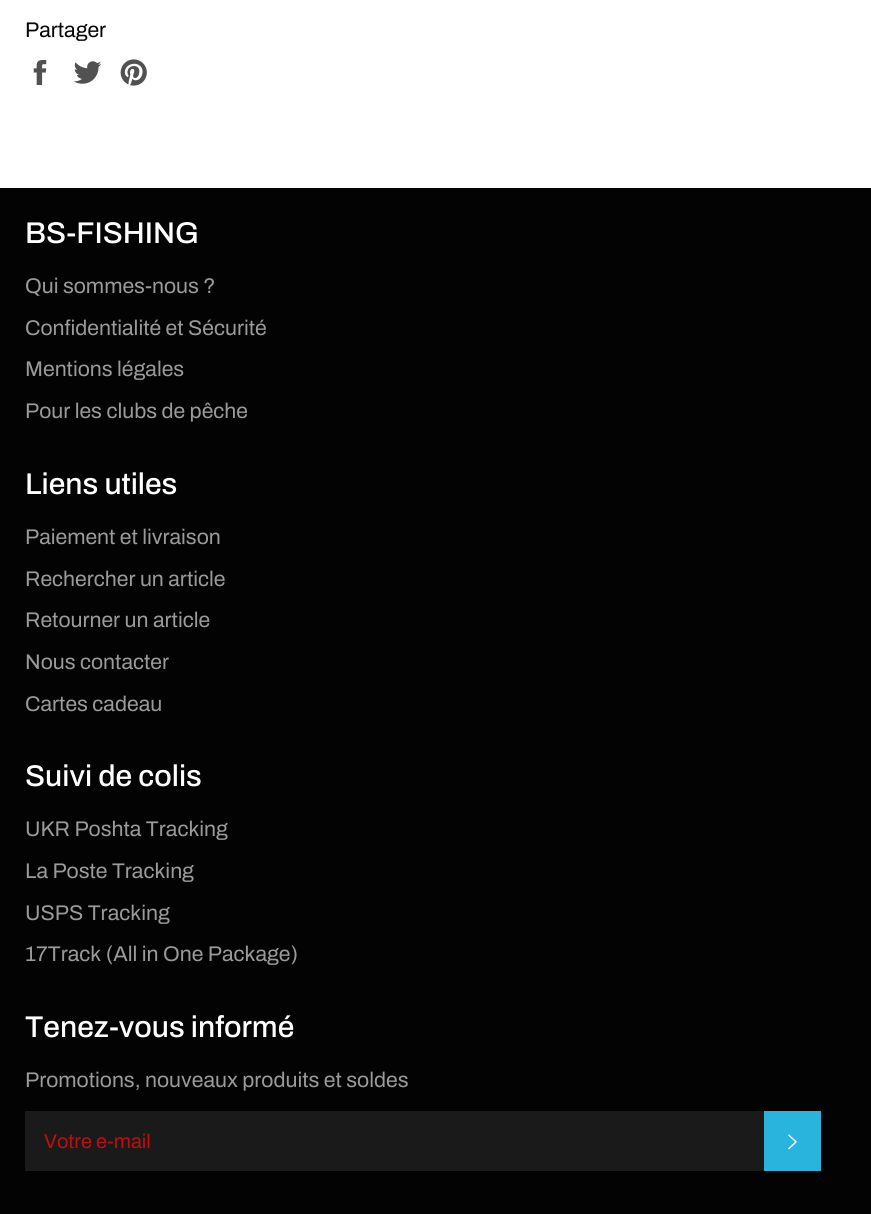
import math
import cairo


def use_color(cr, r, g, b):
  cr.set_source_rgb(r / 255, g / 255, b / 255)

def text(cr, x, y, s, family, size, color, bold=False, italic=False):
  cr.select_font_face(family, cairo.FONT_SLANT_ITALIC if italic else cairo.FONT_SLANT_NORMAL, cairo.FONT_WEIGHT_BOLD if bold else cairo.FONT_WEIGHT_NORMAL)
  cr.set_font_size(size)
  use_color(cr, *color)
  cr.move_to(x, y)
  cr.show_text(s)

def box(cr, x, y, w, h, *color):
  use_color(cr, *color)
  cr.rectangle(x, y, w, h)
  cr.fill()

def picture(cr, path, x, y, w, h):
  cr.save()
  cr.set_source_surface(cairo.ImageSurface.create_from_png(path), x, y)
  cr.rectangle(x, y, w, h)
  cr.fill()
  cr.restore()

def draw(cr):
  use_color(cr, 255, 255, 255)
  cr.paint()
  picture(cr, "img_01.png", 33, 60, 14, 25)
  picture(cr, "img_02.png", 74, 61, 28, 23)
  picture(cr, "img_03.png", 120, 59, 27, 27)
  box(cr, 0, 188, 871, 1026, 3, 3, 3)
  box(cr, 25, 1111, 739, 60, 26, 26, 26)
  box(cr, 764, 1111, 57, 60, 41, 180, 222)
  picture(cr, "img_04.png", 788, 1134, 9, 16)
  text(cr, 25, 37, "Partager", "Archivo", 21.25, (7, 6, 6))
  text(cr, 25, 243, "BS-FISHING", "Archivo Medium", 30, (255, 255, 255))
  text(cr, 25, 293, "Qui sommes-nous ?", "Archivo", 21.25, (154, 154, 154))
  text(cr, 25, 335, "Confidentialité et Sécurité", "Archivo", 21.25, (154, 154, 154))
  text(cr, 25, 376, "Mentions légales", "Archivo", 21.25, (154, 154, 154))
  text(cr, 25, 418, "Pour les clubs de pêche", "Archivo", 21.25, (154, 154, 154))
  text(cr, 25, 494, "Liens utiles", "Archivo Medium", 30, (255, 255, 255))
  text(cr, 25, 544, "Paiement et livraison", "Archivo", 21.25, (154, 154, 154))
  text(cr, 25, 586, "Rechercher un article", "Archivo", 21.25, (154, 154, 154))
  text(cr, 25, 627, "Retourner un article", "Archivo", 21.25, (154, 154, 154))
  text(cr, 25, 669, "Nous contacter", "Archivo", 21.25, (154, 154, 154))
  text(cr, 25, 711, "Cartes cadeau", "Archivo", 21.25, (154, 154, 154))
  text(cr, 25, 786, "Suivi de colis", "Archivo Medium", 30, (255, 255, 255))
  text(cr, 25, 836, "UKR Poshta Tracking", "Archivo", 21.25, (154, 154, 154))
  text(cr, 25, 878, "La Poste Tracking", "Archivo", 21.25, (154, 154, 154))
  text(cr, 25, 920, "USPS Tracking", "Archivo", 21.25, (154, 154, 154))
  text(cr, 25, 961, "17Track (All in One Package)", "Archivo", 21.25, (154, 154, 154))
  text(cr, 25, 1037, "Tenez-vous informé", "Archivo Medium", 30, (255, 255, 255))
  text(cr, 25, 1087, "Promotions, nouveaux produits et soldes", "Archivo", 21.25, (154, 154, 154))
  text(cr, 44, 1148, "Votre e-mail", "Archivo", 20, (186, 16, 16))


surface = cairo.ImageSurface(cairo.FORMAT_RGB24, 871, 1214)
cr = cairo.Context(surface)
options = cairo.FontOptions()
options.set_hint_metrics(cairo.HINT_METRICS_OFF)
options.set_hint_style(cairo.HINT_STYLE_NONE)
cr.set_font_options(options)
cr.set_miter_limit(4)
draw(cr)
surface.write_to_png("out.png")
